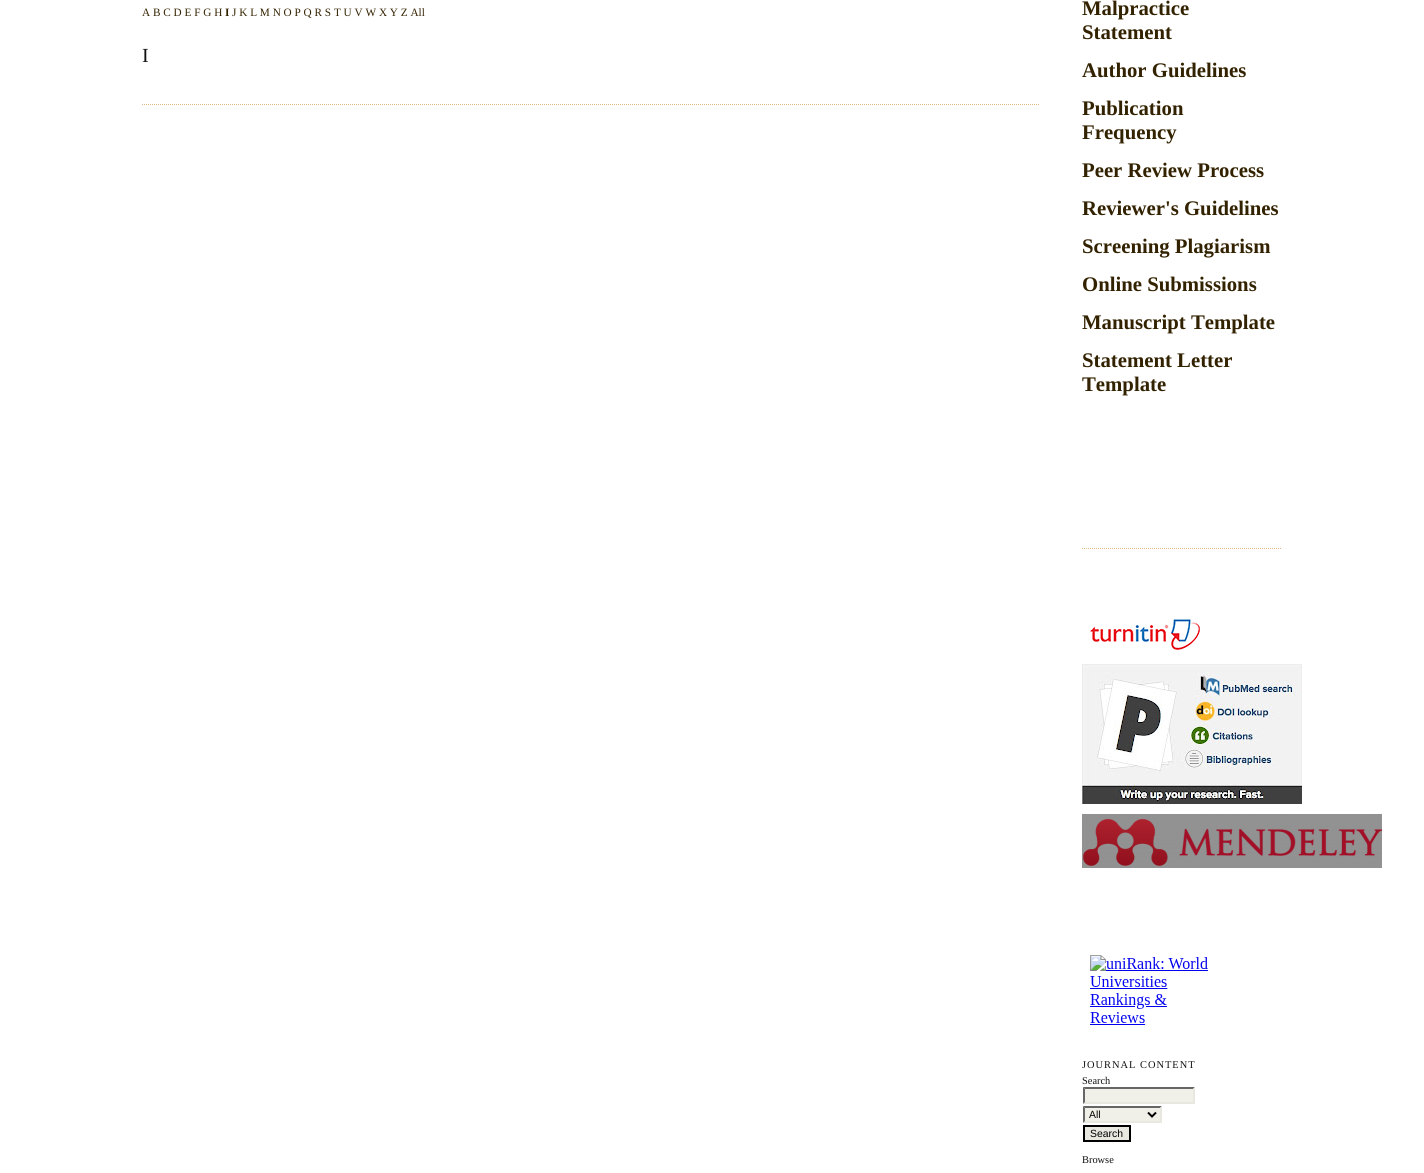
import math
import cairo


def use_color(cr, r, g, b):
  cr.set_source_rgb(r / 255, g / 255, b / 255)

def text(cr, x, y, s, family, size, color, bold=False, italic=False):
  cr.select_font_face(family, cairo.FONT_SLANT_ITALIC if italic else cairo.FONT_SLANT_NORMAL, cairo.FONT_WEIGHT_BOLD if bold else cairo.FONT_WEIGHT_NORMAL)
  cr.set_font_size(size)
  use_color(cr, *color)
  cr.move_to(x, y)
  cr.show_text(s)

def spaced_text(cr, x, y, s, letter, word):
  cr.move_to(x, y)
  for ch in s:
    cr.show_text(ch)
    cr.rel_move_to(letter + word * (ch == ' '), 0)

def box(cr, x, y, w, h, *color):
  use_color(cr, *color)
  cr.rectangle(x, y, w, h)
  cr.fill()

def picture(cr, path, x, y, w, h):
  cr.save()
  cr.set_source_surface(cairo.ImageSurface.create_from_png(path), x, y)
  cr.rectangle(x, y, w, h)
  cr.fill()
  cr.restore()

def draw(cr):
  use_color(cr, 255, 255, 255)
  cr.paint()
  cr.new_path()
  cr.move_to(142, 104.5)
  cr.line_to(1040, 104.5)
  use_color(cr, 222, 184, 135)
  cr.set_line_width(1)
  cr.set_dash([1, 1])
  cr.stroke()
  cr.new_path()
  cr.move_to(1082, 548.5)
  cr.line_to(1282, 548.5)
  cr.stroke()
  picture(cr, "img_01.png", 1090, 619, 110, 31)
  picture(cr, "img_02.png", 1082, 664, 220, 140)
  picture(cr, "img_03.png", 1082, 814, 300, 54)
  picture(cr, "img_04.png", 1090, 955, 118, 70)
  box(cr, 1083, 1087, 112, 17, 240, 240, 232)
  use_color(cr, 102, 102, 102)
  cr.new_path()
  cr.move_to(1083, 1087)
  cr.line_to(1195, 1087)
  cr.line_to(1193, 1089)
  cr.line_to(1085, 1089)
  cr.close_path()
  cr.fill()
  use_color(cr, 232, 232, 225)
  cr.new_path()
  cr.move_to(1195, 1087)
  cr.line_to(1195, 1104)
  cr.line_to(1193, 1102)
  cr.line_to(1193, 1089)
  cr.close_path()
  cr.fill()
  cr.new_path()
  cr.move_to(1195, 1104)
  cr.line_to(1083, 1104)
  cr.line_to(1085, 1102)
  cr.line_to(1193, 1102)
  cr.close_path()
  cr.fill()
  use_color(cr, 102, 102, 102)
  cr.new_path()
  cr.move_to(1083, 1104)
  cr.line_to(1083, 1087)
  cr.line_to(1085, 1089)
  cr.line_to(1085, 1102)
  cr.close_path()
  cr.fill()
  box(cr, 1083, 1106, 79, 17, 240, 240, 232)
  use_color(cr, 102, 102, 102)
  cr.new_path()
  cr.move_to(1083, 1106)
  cr.line_to(1162, 1106)
  cr.line_to(1160, 1108)
  cr.line_to(1085, 1108)
  cr.close_path()
  cr.fill()
  use_color(cr, 232, 232, 225)
  cr.new_path()
  cr.move_to(1162, 1106)
  cr.line_to(1162, 1123)
  cr.line_to(1160, 1121)
  cr.line_to(1160, 1108)
  cr.close_path()
  cr.fill()
  cr.new_path()
  cr.move_to(1162, 1123)
  cr.line_to(1083, 1123)
  cr.line_to(1085, 1121)
  cr.line_to(1160, 1121)
  cr.close_path()
  cr.fill()
  use_color(cr, 102, 102, 102)
  cr.new_path()
  cr.move_to(1083, 1123)
  cr.line_to(1083, 1106)
  cr.line_to(1085, 1108)
  cr.line_to(1085, 1121)
  cr.close_path()
  cr.fill()
  cr.new_path()
  cr.move_to(1148, 1112.5)
  cr.line_to(1152, 1116.5)
  cr.line_to(1156, 1112.5)
  use_color(cr, 0, 0, 0)
  cr.set_line_width(2)
  cr.set_dash([])
  cr.stroke()
  use_color(cr, 232, 232, 225)
  cr.rectangle(1084, 1126, 46, 15)
  cr.fill_preserve()
  use_color(cr, 0, 0, 0)
  cr.stroke()
  text(cr, 142, 16, "A B C D E F G H", "Liberation Serif", 11.25, (51, 34, 0))
  text(cr, 225, 16, "I", "Liberation Serif", 11.25, (51, 34, 0), bold=True)
  text(cr, 232, 16, "J K L M N O P Q R S T U V W X Y Z All", "Liberation Serif", 11.25, (51, 34, 0))
  text(cr, 142, 62, "I", "Liberation Serif", 20, (17, 17, 17))
  text(cr, 1082, 15, "Malpractice", "Liberation Serif", 20.75, (51, 34, 0), bold=True)
  text(cr, 1082, 39, "Statement", "Liberation Serif", 20.75, (51, 34, 0), bold=True)
  text(cr, 1082, 77, "Author Guidelines", "Liberation Serif", 20.75, (51, 34, 0), bold=True)
  text(cr, 1082, 115, "Publication", "Liberation Serif", 20.75, (51, 34, 0), bold=True)
  text(cr, 1082, 139, "Frequency", "Liberation Serif", 20.75, (51, 34, 0), bold=True)
  text(cr, 1082, 177, "Peer Review Process", "Liberation Serif", 20.75, (51, 34, 0), bold=True)
  text(cr, 1082, 215, "Reviewer's Guidelines", "Liberation Serif", 20.75, (51, 34, 0), bold=True)
  text(cr, 1082, 253, "Screening Plagiarism", "Liberation Serif", 20.75, (51, 34, 0), bold=True)
  text(cr, 1082, 291, "Online Submissions", "Liberation Serif", 20.75, (51, 34, 0), bold=True)
  text(cr, 1082, 329, "Manuscript Template", "Liberation Serif", 20.75, (51, 34, 0), bold=True)
  text(cr, 1082, 367, "Statement Letter", "Liberation Serif", 20.75, (51, 34, 0), bold=True)
  text(cr, 1082, 391, "Template", "Liberation Serif", 20.75, (51, 34, 0), bold=True)
  cr.select_font_face("Liberation Serif")
  cr.set_font_size(10.4)
  use_color(cr, 17, 17, 17)
  spaced_text(cr, 1082, 1068, "JOURNAL CONTENT", 1, 0)
  text(cr, 1082, 1084, "Search", "Liberation Serif", 10.4, (17, 17, 17))
  text(cr, 1089, 1118, "All", "Liberation Sans", 10.4, (0, 0, 0))
  text(cr, 1090, 1137, "Search", "Liberation Sans", 10.4, (0, 0, 0))
  text(cr, 1082, 1163, "Browse", "Liberation Serif", 10.4, (17, 17, 17))


surface = cairo.ImageSurface(cairo.FORMAT_RGB24, 1424, 1173)
cr = cairo.Context(surface)
options = cairo.FontOptions()
options.set_hint_metrics(cairo.HINT_METRICS_OFF)
options.set_hint_style(cairo.HINT_STYLE_NONE)
cr.set_font_options(options)
cr.set_miter_limit(4)
draw(cr)
surface.write_to_png("out.png")
